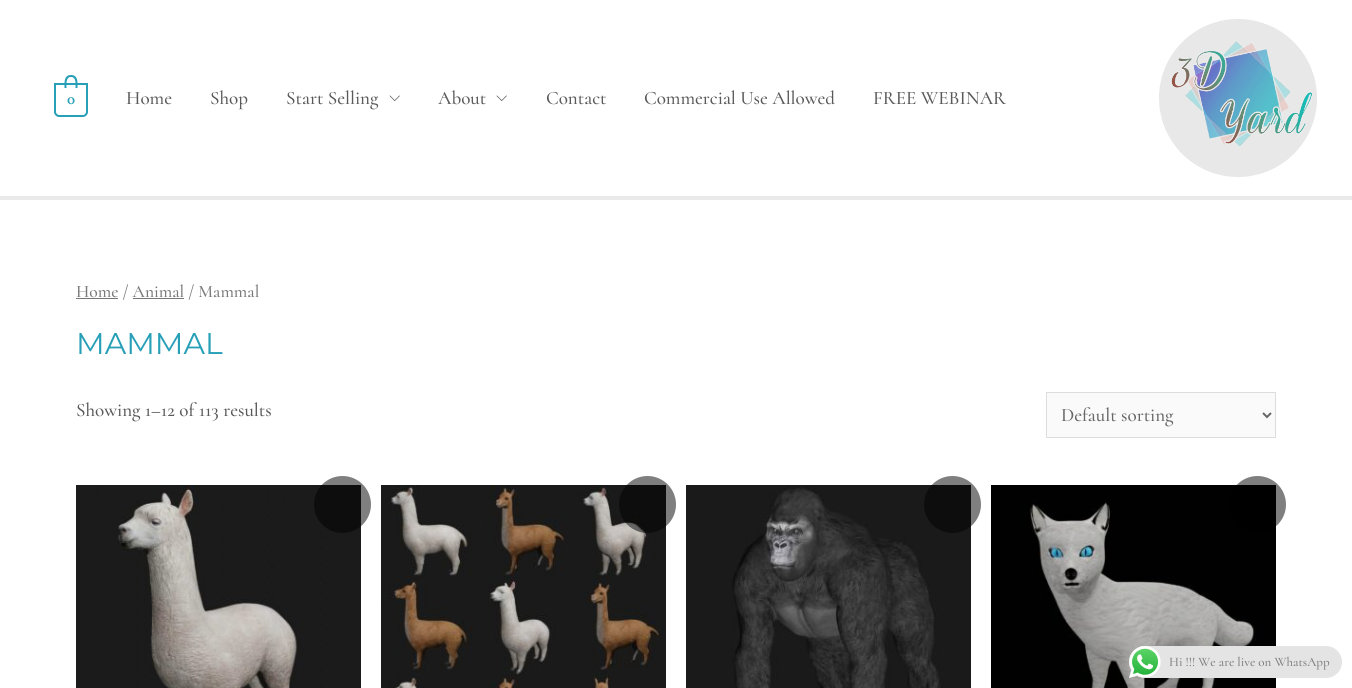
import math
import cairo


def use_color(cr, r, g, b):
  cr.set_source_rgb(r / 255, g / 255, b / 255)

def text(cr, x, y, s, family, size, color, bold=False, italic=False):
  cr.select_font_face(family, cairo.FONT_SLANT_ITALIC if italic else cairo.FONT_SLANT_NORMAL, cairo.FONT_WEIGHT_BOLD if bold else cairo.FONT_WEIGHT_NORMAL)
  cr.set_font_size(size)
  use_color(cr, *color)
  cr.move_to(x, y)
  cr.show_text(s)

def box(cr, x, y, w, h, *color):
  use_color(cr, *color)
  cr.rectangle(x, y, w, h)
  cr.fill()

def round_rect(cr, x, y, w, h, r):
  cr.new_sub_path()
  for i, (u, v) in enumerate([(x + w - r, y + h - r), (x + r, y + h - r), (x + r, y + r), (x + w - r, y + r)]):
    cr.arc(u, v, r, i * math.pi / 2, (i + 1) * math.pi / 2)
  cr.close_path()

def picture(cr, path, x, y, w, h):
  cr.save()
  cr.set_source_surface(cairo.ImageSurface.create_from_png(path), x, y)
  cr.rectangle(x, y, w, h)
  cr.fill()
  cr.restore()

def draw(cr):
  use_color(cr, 255, 255, 255)
  cr.paint()
  box(cr, 0, 196, 1352, 4, 234, 234, 234)
  cr.new_path()
  cr.move_to(55, 84)
  cr.line_to(87, 84)
  cr.line_to(87, 112)
  cr.curve_to(87, 114, 85, 116, 83, 116)
  cr.line_to(59, 116)
  cr.curve_to(57, 116, 55, 114, 55, 112)
  cr.close_path()
  use_color(cr, 38, 159, 183)
  cr.stroke()
  cr.set_fill_rule(cairo.FILL_RULE_EVEN_ODD)
  cr.new_path()
  cr.move_to(71, 75)
  cr.curve_to(78.5, 75, 77.5, 83, 77.5, 88)
  cr.line_to(64.5, 88)
  cr.curve_to(64.5, 83, 63.5, 75, 71, 75)
  cr.close_path()
  cr.move_to(71, 77)
  cr.curve_to(76.5, 77, 75.5, 84.5, 75.5, 88)
  cr.line_to(66.5, 88)
  cr.curve_to(66.5, 84.5, 65.5, 77, 71, 77)
  cr.close_path()
  cr.fill()
  picture(cr, "img_01.png", 389, 95, 11, 6)
  picture(cr, "img_01.png", 496, 95, 11, 6)
  picture(cr, "img_02.png", 1159, 19, 158, 158)
  box(cr, 76, 298, 42, 1, 119, 119, 119)
  box(cr, 133, 298, 51, 1, 119, 119, 119)
  use_color(cr, 250, 250, 250)
  cr.rectangle(1046.5, 392.5, 229, 45)
  cr.fill_preserve()
  use_color(cr, 221, 221, 221)
  cr.set_line_width(1)
  cr.stroke()
  cr.new_path()
  cr.move_to(1263, 413)
  cr.line_to(1267, 417)
  cr.line_to(1271, 413)
  use_color(cr, 102, 102, 102)
  cr.set_line_width(2)
  cr.stroke()
  picture(cr, "img_03.png", 76, 485, 285, 203)
  cr.set_source_rgba(0, 0, 0, 0.5)
  cr.arc(342.5, 504.5, 28.5, 0, 2 * math.pi)
  cr.fill()
  picture(cr, "img_04.png", 381, 485, 285, 203)
  cr.arc(647.5, 504.5, 28.5, 0, 2 * math.pi)
  cr.fill()
  picture(cr, "img_05.png", 686, 485, 285, 203)
  cr.arc(952.5, 504.5, 28.5, 0, 2 * math.pi)
  cr.fill()
  picture(cr, "img_06.png", 991, 485, 285, 203)
  cr.arc(1257.5, 504.5, 28.5, 0, 2 * math.pi)
  cr.fill()
  use_color(cr, 228, 228, 228)
  round_rect(cr, 1129, 646, 213, 32, 16)
  cr.fill()
  picture(cr, "img_07.png", 1129, 646, 32, 32)
  text(cr, 67, 104, "0", "Cormorant", 16, (38, 159, 183), bold=True)
  text(cr, 126, 104, "Home", "Cormorant Light", 19, (89, 89, 89))
  text(cr, 210, 104, "Shop", "Cormorant Light", 19, (89, 89, 89))
  text(cr, 286, 104, "Start Selling", "Cormorant Light", 19, (89, 89, 89))
  text(cr, 438, 104, "About", "Cormorant Light", 19, (89, 89, 89))
  text(cr, 546, 104, "Contact", "Cormorant Light", 19, (89, 89, 89))
  text(cr, 644, 104, "Commercial Use Allowed", "Cormorant Light", 19, (89, 89, 89))
  text(cr, 873, 104, "FREE WEBINAR", "Cormorant Light", 19, (89, 89, 89))
  text(cr, 76, 297, "Home / Animal / Mammal", "Cormorant Light", 17.5, (119, 119, 119))
  text(cr, 76, 354, "MAMMAL", "Montserrat", 30, (38, 159, 183))
  text(cr, 76, 416, "Showing 1–12 of 113 results", "Cormorant Light", 19, (89, 89, 89))
  text(cr, 1061, 421, "Default sorting", "Cormorant Light", 19, (102, 102, 102))
  text(cr, 1169, 666, "Hi !!! We are live on WhatsApp", "Cormorant Light", 13, (127, 125, 125))


surface = cairo.ImageSurface(cairo.FORMAT_RGB24, 1352, 688)
cr = cairo.Context(surface)
options = cairo.FontOptions()
options.set_hint_metrics(cairo.HINT_METRICS_OFF)
options.set_hint_style(cairo.HINT_STYLE_NONE)
cr.set_font_options(options)
cr.set_miter_limit(4)
draw(cr)
surface.write_to_png("out.png")
